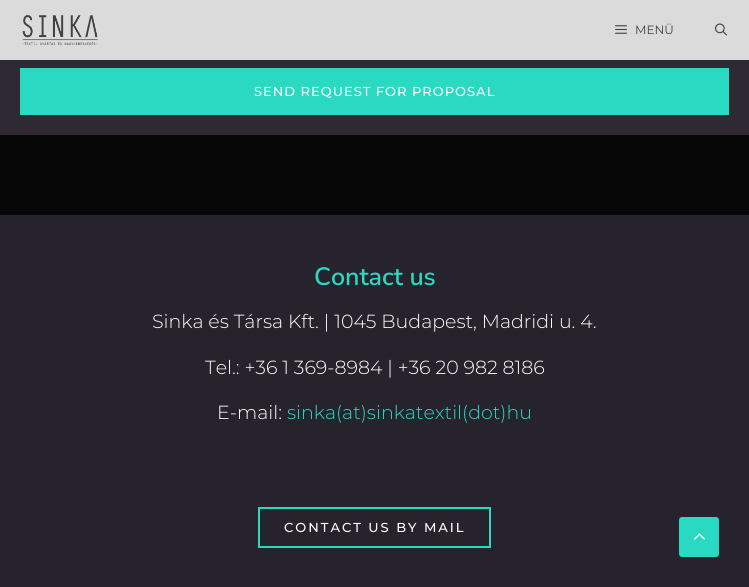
import math
import cairo


def use_color(cr, r, g, b):
  cr.set_source_rgb(r / 255, g / 255, b / 255)

def text(cr, x, y, s, family, size, color, bold=False, italic=False):
  cr.select_font_face(family, cairo.FONT_SLANT_ITALIC if italic else cairo.FONT_SLANT_NORMAL, cairo.FONT_WEIGHT_BOLD if bold else cairo.FONT_WEIGHT_NORMAL)
  cr.set_font_size(size)
  use_color(cr, *color)
  cr.move_to(x, y)
  cr.show_text(s)

def spaced_text(cr, x, y, s, letter, word):
  cr.move_to(x, y)
  for ch in s:
    cr.show_text(ch)
    cr.rel_move_to(letter + word * (ch == ' '), 0)

def box(cr, x, y, w, h, *color):
  use_color(cr, *color)
  cr.rectangle(x, y, w, h)
  cr.fill()

def round_rect(cr, x, y, w, h, r):
  cr.new_sub_path()
  for i, (u, v) in enumerate([(x + w - r, y + h - r), (x + r, y + h - r), (x + r, y + r), (x + w - r, y + r)]):
    cr.arc(u, v, r, i * math.pi / 2, (i + 1) * math.pi / 2)
  cr.close_path()

def picture(cr, path, x, y, w, h):
  cr.save()
  cr.set_source_surface(cairo.ImageSurface.create_from_png(path), x, y)
  cr.rectangle(x, y, w, h)
  cr.fill()
  cr.restore()

def draw(cr):
  use_color(cr, 7, 7, 8)
  cr.paint()
  box(cr, 0, 0, 749, 60, 219, 219, 219)
  picture(cr, "img_01.png", 22, 15, 76, 31)
  picture(cr, "img_02.png", 615, 25, 12, 9)
  picture(cr, "img_03.png", 715, 23, 12, 13)
  box(cr, 0, 60, 749, 75, 46, 41, 51)
  box(cr, 20, 68, 709, 47, 41, 217, 194)
  box(cr, 0, 215, 749, 372, 39, 35, 44)
  cr.rectangle(259, 508, 231, 39)
  use_color(cr, 41, 217, 194)
  cr.stroke()
  round_rect(cr, 679, 517, 40, 40, 3)
  cr.fill()
  picture(cr, "img_04.png", 693, 533, 12, 7)
  text(cr, 635, 34, "MENÜ", "Montserrat", 12, (66, 66, 66))
  cr.select_font_face("Montserrat Medium")
  cr.set_font_size(13)
  use_color(cr, 255, 255, 255)
  spaced_text(cr, 254, 96, "SEND REQUEST FOR PROPOSAL", 1, 0)
  text(cr, 314, 285, "Contact us", "Nunito SemiBold", 25, (41, 217, 194))
  text(cr, 152, 328, "Sinka és Társa Kft. | 1045 Budapest, Madridi u. 4.", "Montserrat Light", 19, (255, 255, 255))
  text(cr, 205, 374, "Tel.: +36 1 369-8984 | +36 20 982 8186", "Montserrat Light", 19, (255, 255, 255))
  text(cr, 217, 419, "E-mail:", "Montserrat Light", 19, (255, 255, 255))
  text(cr, 287, 419, "sinka(at)sinkatextil(dot)hu", "Montserrat Light", 19, (41, 217, 194))
  cr.select_font_face("Montserrat Medium")
  cr.set_font_size(13)
  use_color(cr, 255, 255, 255)
  spaced_text(cr, 284, 532, "CONTACT US BY MAIL", 2, 0)


surface = cairo.ImageSurface(cairo.FORMAT_RGB24, 749, 587)
cr = cairo.Context(surface)
options = cairo.FontOptions()
options.set_hint_metrics(cairo.HINT_METRICS_OFF)
options.set_hint_style(cairo.HINT_STYLE_NONE)
cr.set_font_options(options)
cr.set_miter_limit(4)
draw(cr)
surface.write_to_png("out.png")
